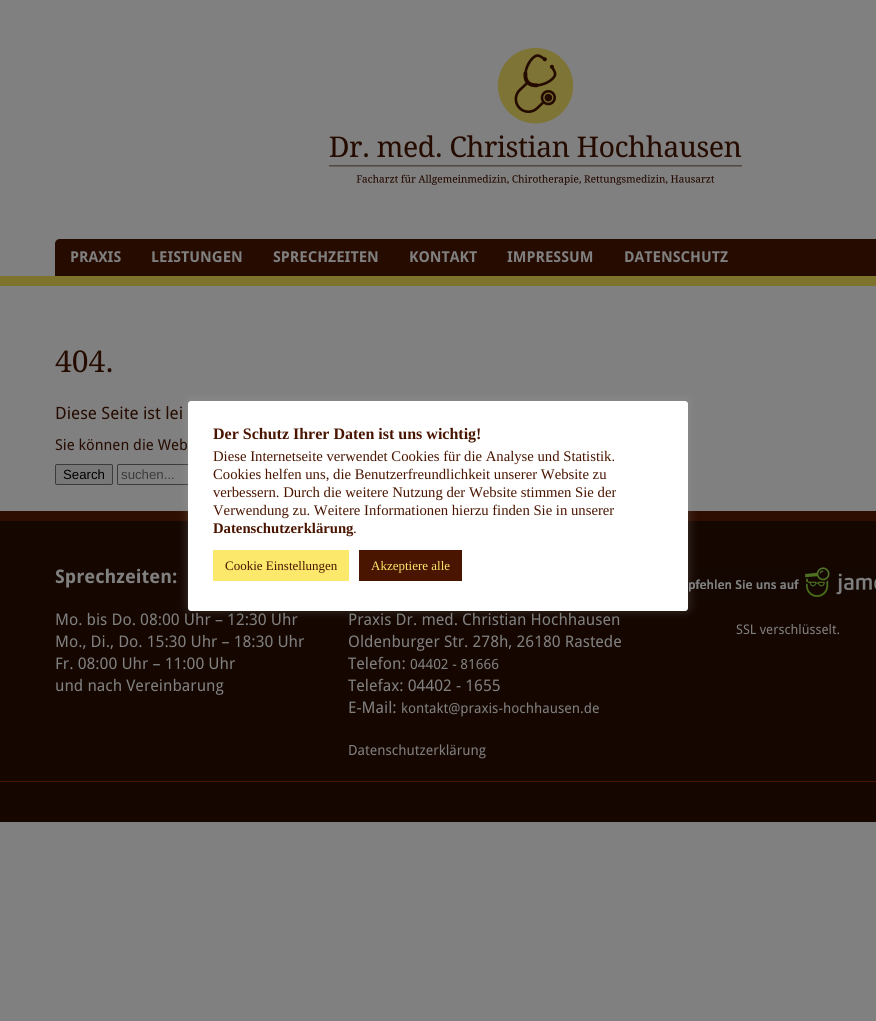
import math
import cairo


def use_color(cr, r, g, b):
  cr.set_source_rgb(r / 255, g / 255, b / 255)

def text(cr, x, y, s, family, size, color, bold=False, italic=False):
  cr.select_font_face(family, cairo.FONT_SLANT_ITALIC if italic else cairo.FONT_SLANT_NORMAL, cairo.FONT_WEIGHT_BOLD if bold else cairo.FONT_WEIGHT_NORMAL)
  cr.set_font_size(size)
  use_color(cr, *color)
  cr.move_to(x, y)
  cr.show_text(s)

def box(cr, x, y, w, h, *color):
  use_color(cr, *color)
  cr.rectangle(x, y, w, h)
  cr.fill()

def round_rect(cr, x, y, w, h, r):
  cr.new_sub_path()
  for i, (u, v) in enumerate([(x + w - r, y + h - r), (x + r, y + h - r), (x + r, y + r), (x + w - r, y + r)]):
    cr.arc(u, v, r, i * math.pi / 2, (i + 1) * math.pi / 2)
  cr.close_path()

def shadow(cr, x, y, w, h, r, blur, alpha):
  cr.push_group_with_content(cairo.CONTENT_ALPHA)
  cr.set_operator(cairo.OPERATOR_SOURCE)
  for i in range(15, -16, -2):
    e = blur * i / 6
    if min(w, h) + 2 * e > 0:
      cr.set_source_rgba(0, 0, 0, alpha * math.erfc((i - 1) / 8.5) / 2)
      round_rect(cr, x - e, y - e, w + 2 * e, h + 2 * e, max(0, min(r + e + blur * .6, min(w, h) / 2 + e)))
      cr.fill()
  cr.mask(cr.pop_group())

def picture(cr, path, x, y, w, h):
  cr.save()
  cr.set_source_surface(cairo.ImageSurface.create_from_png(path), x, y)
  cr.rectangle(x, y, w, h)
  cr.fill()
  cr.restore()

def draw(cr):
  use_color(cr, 128, 128, 128)
  cr.paint()
  picture(cr, "img_01.png", 329, 48, 413, 137)
  use_color(cr, 37, 11, 0)
  cr.new_path()
  cr.move_to(60, 239)
  cr.line_to(876, 239)
  cr.curve_to(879, 239, 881, 241, 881, 244)
  cr.line_to(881, 276)
  cr.line_to(55, 276)
  cr.line_to(55, 244)
  cr.curve_to(55, 241, 57, 239, 60, 239)
  cr.close_path()
  cr.fill()
  box(cr, 0, 276, 876, 10, 126, 115, 44)
  use_color(cr, 120, 120, 120)
  round_rect(cr, 55.5, 464.5, 57, 20, 1.5)
  cr.fill_preserve()
  use_color(cr, 59, 59, 59)
  cr.set_line_width(1)
  cr.stroke()
  round_rect(cr, 117.5, 464.5, 184, 20, 1.5)
  cr.stroke()
  box(cr, 0, 521, 876, 301, 21, 6, 0)
  box(cr, 0, 511, 876, 10, 46, 14, 0)
  picture(cr, "img_02.png", 688, 567, 188, 30)
  use_color(cr, 172, 171, 171)
  shadow(cr, 188, 400, 500, 210, 3, 5, 0.3)
  use_color(cr, 255, 255, 255)
  round_rect(cr, 188, 401, 500, 210, 3)
  cr.fill()
  box(cr, 213, 550, 136, 31, 252, 232, 107)
  box(cr, 359, 550, 103, 31, 74, 21, 0)
  box(cr, 0, 781, 876, 1, 72, 21, 0)
  text(cr, 70, 262, "PRAXIS", "Droid Sans", 15, (128, 128, 128), bold=True)
  text(cr, 151, 262, "LEISTUNGEN", "Droid Sans", 15, (128, 128, 128), bold=True)
  text(cr, 273, 262, "SPRECHZEITEN", "Droid Sans", 15, (128, 128, 128), bold=True)
  text(cr, 409, 262, "KONTAKT", "Droid Sans", 15, (128, 128, 128), bold=True)
  text(cr, 507, 262, "IMPRESSUM", "Droid Sans", 15, (128, 128, 128), bold=True)
  text(cr, 624, 262, "DATENSCHUTZ", "Droid Sans", 15, (128, 128, 128), bold=True)
  text(cr, 55, 372, "404.", "Droid Serif", 30, (37, 11, 0))
  text(cr, 55, 419, "Diese Seite ist lei", "Droid Sans", 17, (37, 11, 0))
  text(cr, 55, 450, "Sie können die Web", "Droid Sans", 15, (37, 11, 0))
  text(cr, 63, 479, "Search", "Liberation Sans", 13.25, (0, 0, 0))
  text(cr, 121, 479, "suchen...", "Liberation Sans", 13.25, (59, 59, 59))
  text(cr, 213, 439, "Der Schutz Ihrer Daten ist uns wichtig!", "Liberation Serif", 16, (74, 21, 0), bold=True)
  text(cr, 213, 461, "Diese Internetseite verwendet Cookies für die Analyse und Statistik.", "Liberation Serif", 14.7, (74, 21, 0))
  text(cr, 213, 479, "Cookies helfen uns, die Benutzerfreundlichkeit unserer Website zu", "Liberation Serif", 14.7, (74, 21, 0))
  text(cr, 213, 497, "verbessern. Durch die weitere Nutzung der Website stimmen Sie der", "Liberation Serif", 14.7, (74, 21, 0))
  text(cr, 213, 515, "Verwendung zu. Weitere Informationen hierzu finden Sie in unserer", "Liberation Serif", 14.7, (74, 21, 0))
  text(cr, 213, 533, "Datenschutzerklärung", "Liberation Serif", 14.7, (74, 21, 0), bold=True)
  text(cr, 353, 533, ".", "Liberation Serif", 14.7, (74, 21, 0))
  text(cr, 225, 570, "Cookie Einstellungen", "Liberation Serif", 13, (74, 21, 0))
  text(cr, 371, 570, "Akzeptiere alle", "Liberation Serif", 13, (252, 232, 107))
  text(cr, 55, 583, "Sprechzeiten:", "Droid Sans", 18.75, (128, 128, 128), bold=True)
  text(cr, 55, 625, "Mo. bis Do. 08:00 Uhr – 12:30 Uhr", "Droid Sans", 16, (128, 128, 128))
  text(cr, 55, 647, "Mo., Di., Do. 15:30 Uhr – 18:30 Uhr", "Droid Sans", 16, (128, 128, 128))
  text(cr, 55, 669, "Fr. 08:00 Uhr – 11:00 Uhr", "Droid Sans", 16, (128, 128, 128))
  text(cr, 55, 691, "und nach Vereinbarung", "Droid Sans", 16, (128, 128, 128))
  text(cr, 348, 625, "Praxis Dr. med. Christian Hochhausen", "Droid Sans", 16, (128, 128, 128))
  text(cr, 348, 647, "Oldenburger Str. 278h, 26180 Rastede", "Droid Sans", 16, (128, 128, 128))
  text(cr, 348, 669, "Telefon:", "Droid Sans", 16, (128, 128, 128))
  text(cr, 410, 669, "04402 - 81666", "Droid Sans", 14, (128, 128, 128))
  text(cr, 348, 691, "Telefax: 04402 - 1655", "Droid Sans", 16, (128, 128, 128))
  text(cr, 348, 713, "E-Mail:", "Droid Sans", 16, (128, 128, 128))
  text(cr, 401, 713, "kontakt@praxis-hochhausen.de", "Droid Sans", 14, (128, 128, 128))
  text(cr, 348, 755, "Datenschutzerklärung", "Droid Sans", 14, (128, 128, 128))
  text(cr, 736, 634, "SSL verschlüsselt.", "Droid Sans", 13.25, (128, 128, 128))


surface = cairo.ImageSurface(cairo.FORMAT_RGB24, 876, 1021)
cr = cairo.Context(surface)
options = cairo.FontOptions()
options.set_hint_metrics(cairo.HINT_METRICS_OFF)
options.set_hint_style(cairo.HINT_STYLE_NONE)
cr.set_font_options(options)
cr.set_miter_limit(4)
draw(cr)
surface.write_to_png("out.png")
